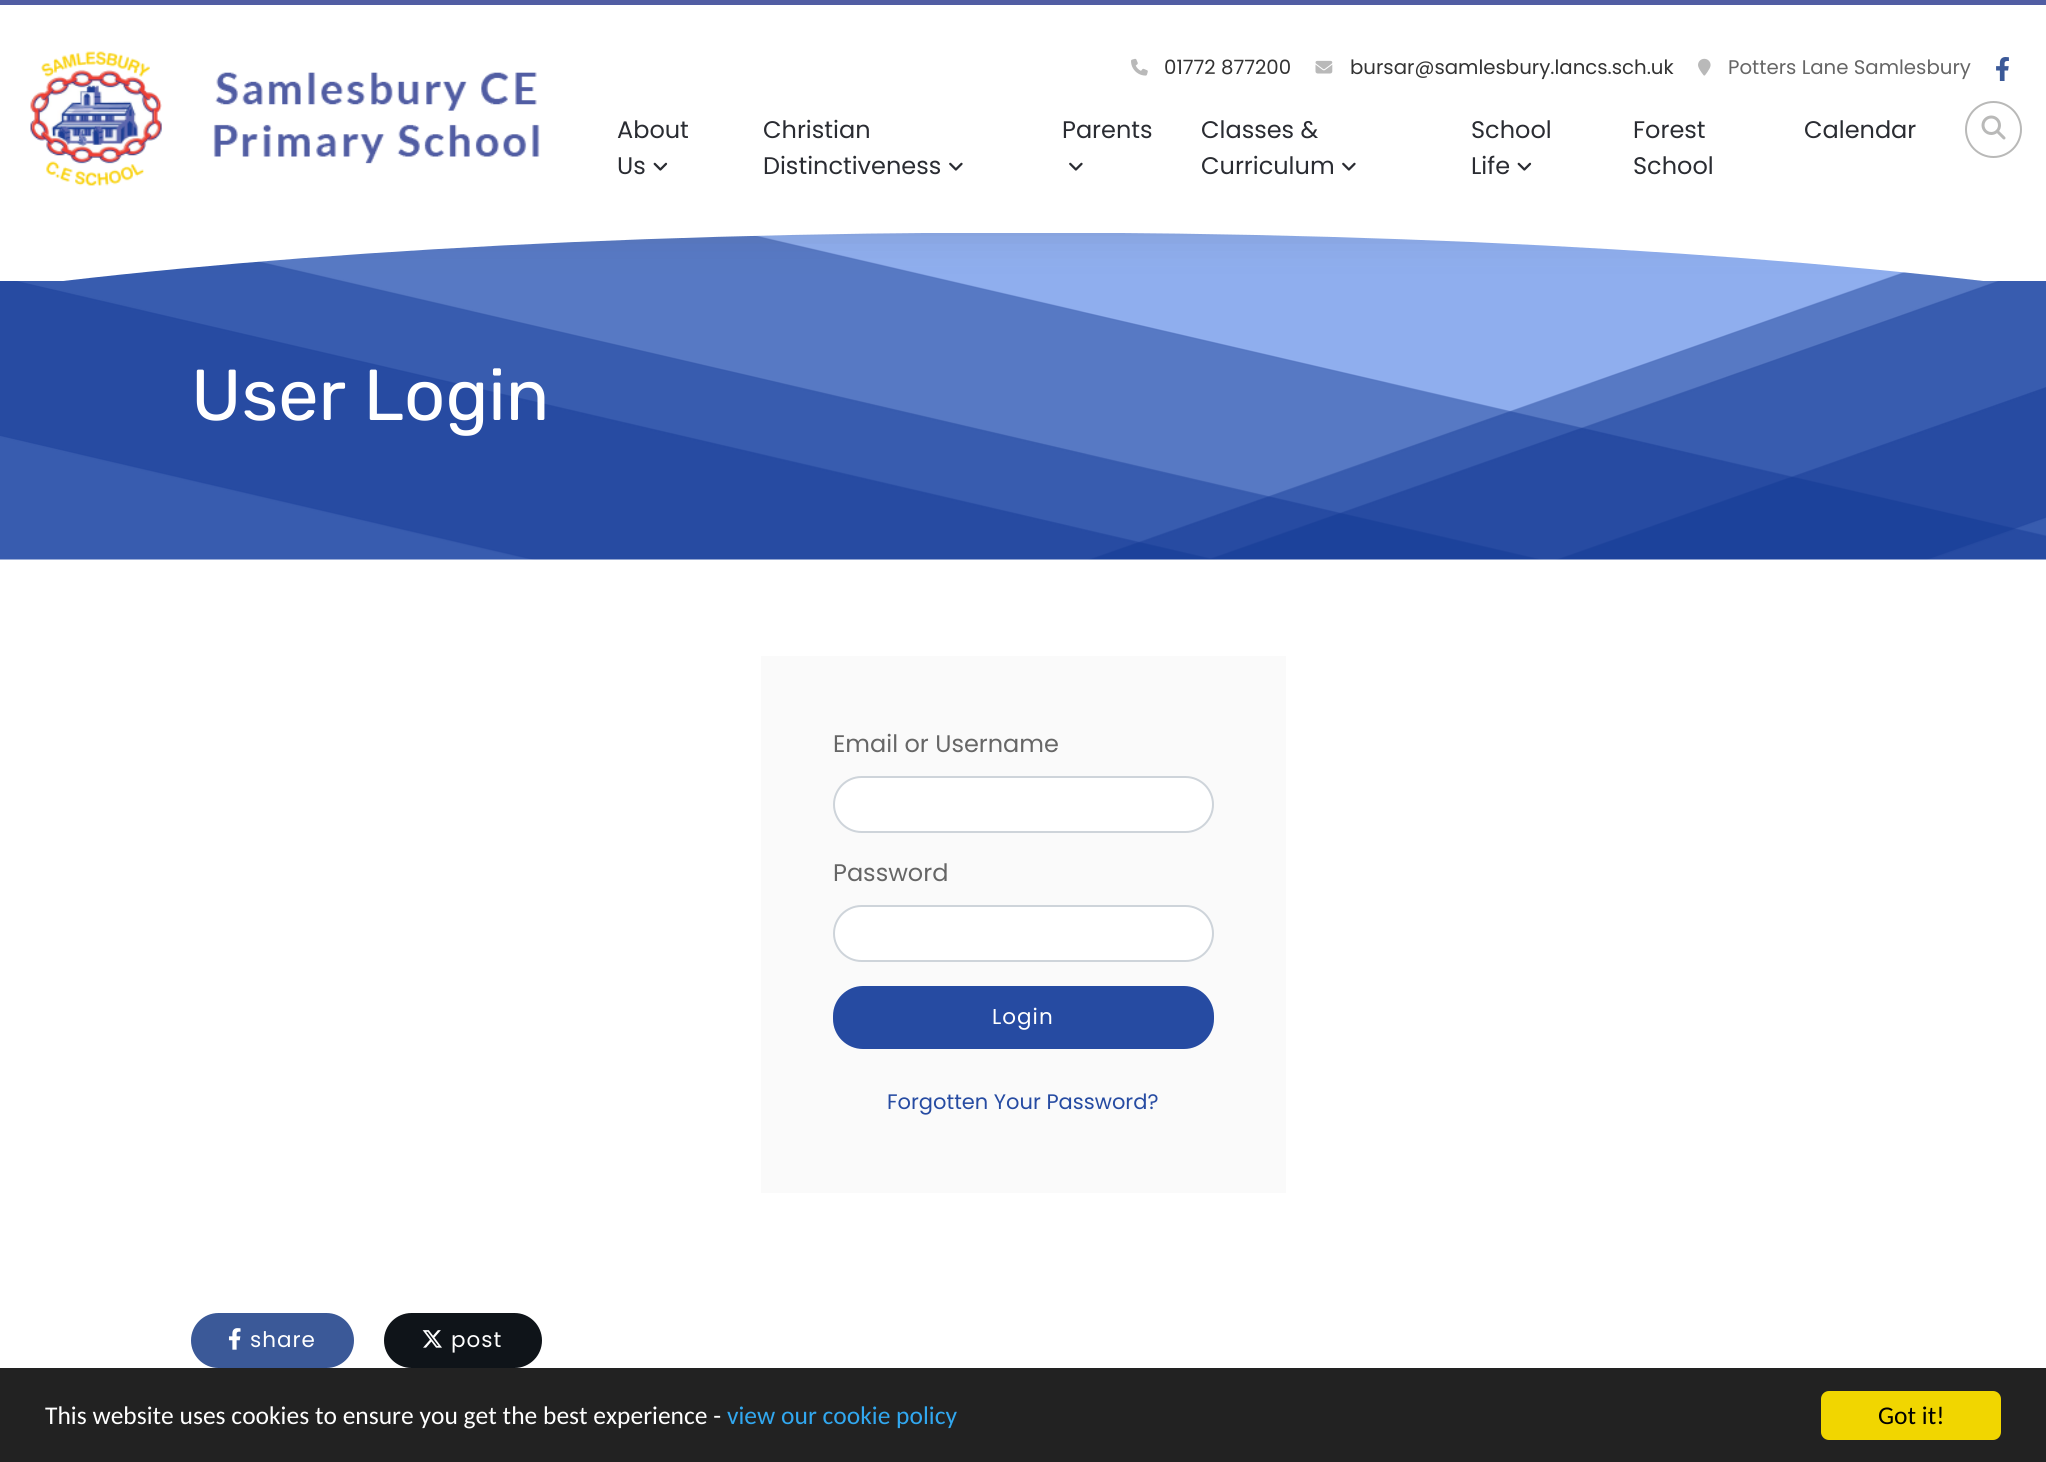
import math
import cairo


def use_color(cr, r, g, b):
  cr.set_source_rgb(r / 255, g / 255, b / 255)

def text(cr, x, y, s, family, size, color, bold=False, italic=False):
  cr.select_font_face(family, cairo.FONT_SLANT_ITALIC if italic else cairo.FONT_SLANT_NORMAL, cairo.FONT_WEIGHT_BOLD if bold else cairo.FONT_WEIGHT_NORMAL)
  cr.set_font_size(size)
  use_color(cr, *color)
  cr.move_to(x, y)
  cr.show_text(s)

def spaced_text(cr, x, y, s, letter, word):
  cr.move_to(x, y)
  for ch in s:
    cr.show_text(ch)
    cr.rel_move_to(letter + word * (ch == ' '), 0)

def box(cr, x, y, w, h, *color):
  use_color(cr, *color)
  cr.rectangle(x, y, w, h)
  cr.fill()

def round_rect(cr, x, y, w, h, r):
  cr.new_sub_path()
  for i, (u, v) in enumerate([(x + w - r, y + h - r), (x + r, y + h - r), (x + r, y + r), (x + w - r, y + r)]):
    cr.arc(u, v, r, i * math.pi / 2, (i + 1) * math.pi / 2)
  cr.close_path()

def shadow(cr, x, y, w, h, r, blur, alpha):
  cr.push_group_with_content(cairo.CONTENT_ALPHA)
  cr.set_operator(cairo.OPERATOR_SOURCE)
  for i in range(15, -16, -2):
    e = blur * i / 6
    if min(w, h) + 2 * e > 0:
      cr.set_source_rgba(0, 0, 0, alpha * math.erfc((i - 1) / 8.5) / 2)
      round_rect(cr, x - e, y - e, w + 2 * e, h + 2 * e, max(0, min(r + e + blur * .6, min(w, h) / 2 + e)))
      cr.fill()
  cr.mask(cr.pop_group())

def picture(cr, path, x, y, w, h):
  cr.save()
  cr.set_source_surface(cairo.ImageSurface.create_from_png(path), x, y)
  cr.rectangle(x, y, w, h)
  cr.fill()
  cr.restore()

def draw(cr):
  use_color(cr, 255, 255, 255)
  cr.paint()
  picture(cr, "img_09.png", 0, 233, 2046, 327)
  use_color(cr, 78, 82, 99)
  shadow(cr, 0, -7, 2046, 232, 0, 22.5, 0.3)
  box(cr, 0, 5, 2046, 228, 255, 255, 255)
  box(cr, 0, 0, 2046, 5, 81, 93, 163)
  picture(cr, "img_01.png", 30, 51, 510, 135)
  picture(cr, "img_02.png", 1131, 58, 17, 18)
  picture(cr, "img_03.png", 1315, 60, 18, 14)
  picture(cr, "img_04.png", 1698, 58, 13, 18)
  picture(cr, "img_05.png", 1996, 57, 13, 24)
  picture(cr, "img_06.png", 653, 162, 15, 9)
  picture(cr, "img_07.png", 949, 162, 14, 9)
  picture(cr, "img_07.png", 1069, 162, 14, 9)
  picture(cr, "img_07.png", 1342, 162, 14, 9)
  picture(cr, "img_06.png", 1517, 162, 15, 9)
  cr.arc(1993.5, 129.5, 27.5, 0, 2 * math.pi)
  use_color(cr, 185, 185, 184)
  cr.stroke()
  picture(cr, "img_08.png", 1981, 115, 25, 25)
  cr.save()
  cr.rectangle(0, 233, 2046, 48)
  cr.clip()
  cr.new_path()
  cr.move_to(1023, 136.5)
  cr.curve_to(1867, 136.5, 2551.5, 233, 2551.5, 352.5)
  cr.curve_to(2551.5, 472, 1867, 568.5, 1023, 568.5)
  cr.curve_to(179, 568.5, -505.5, 472, -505.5, 352.5)
  cr.curve_to(-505.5, 233, 179, 136.5, 1023, 136.5)
  cr.close_path()
  use_color(cr, 255, 255, 255)
  cr.set_line_width(192)
  cr.stroke()
  cr.restore()
  box(cr, 761, 656, 525, 537, 250, 250, 250)
  use_color(cr, 255, 255, 255)
  round_rect(cr, 834, 777, 379, 55, 27.5)
  cr.fill_preserve()
  use_color(cr, 206, 212, 218)
  cr.stroke()
  use_color(cr, 255, 255, 255)
  round_rect(cr, 834, 906, 379, 55, 27.5)
  cr.fill_preserve()
  use_color(cr, 206, 212, 218)
  cr.stroke()
  use_color(cr, 38, 75, 162)
  round_rect(cr, 834, 987, 379, 61, 29)
  cr.fill_preserve()
  cr.stroke()
  use_color(cr, 59, 89, 152)
  round_rect(cr, 192, 1314, 161, 53, 26.5)
  cr.fill_preserve()
  cr.stroke()
  picture(cr, "img_10.png", 228, 1328, 13, 22)
  use_color(cr, 15, 20, 25)
  round_rect(cr, 385, 1314, 156, 53, 26.5)
  cr.fill_preserve()
  cr.stroke()
  picture(cr, "img_11.png", 422, 1330, 20, 18)
  box(cr, 0, 1368, 2046, 94, 34, 34, 34)
  use_color(cr, 241, 214, 0)
  round_rect(cr, 1821, 1391, 180, 49, 8)
  cr.fill()
  text(cr, 1164, 74, "01772 877200", "Poppins", 19.75, (51, 51, 51))
  text(cr, 1350, 74, "bursar@samlesbury.lancs.sch.uk", "Poppins", 19.75, (51, 51, 51))
  text(cr, 1728, 74, "Potters Lane Samlesbury", "Poppins", 19.75, (102, 102, 102))
  text(cr, 617, 138, "About", "Poppins", 24, (42, 44, 50))
  text(cr, 617, 174, "Us", "Poppins", 24, (42, 44, 50))
  text(cr, 763, 138, "Christian", "Poppins", 24, (42, 44, 50))
  text(cr, 763, 174, "Distinctiveness", "Poppins", 24, (42, 44, 50))
  text(cr, 1062, 138, "Parents", "Poppins", 24, (42, 44, 50))
  text(cr, 1201, 138, "Classes &", "Poppins", 24, (42, 44, 50))
  text(cr, 1201, 174, "Curriculum", "Poppins", 24, (42, 44, 50))
  text(cr, 1471, 138, "School", "Poppins", 24, (42, 44, 50))
  text(cr, 1471, 174, "Life", "Poppins", 24, (42, 44, 50))
  text(cr, 1633, 138, "Forest", "Poppins", 24, (42, 44, 50))
  text(cr, 1633, 174, "School", "Poppins", 24, (42, 44, 50))
  text(cr, 1804, 138, "Calendar", "Poppins", 24, (42, 44, 50))
  text(cr, 191, 420, "User Login", "Rubik", 72, (255, 255, 255))
  text(cr, 833, 752, "Email or Username", "Poppins", 24, (102, 102, 102))
  text(cr, 833, 881, "Password", "Poppins", 24, (102, 102, 102))
  cr.set_font_size(21.5)
  use_color(cr, 255, 255, 255)
  spaced_text(cr, 992, 1024, "Login", 1, 0)
  text(cr, 887, 1109, "Forgotten Your Password?", "Poppins", 21, (38, 75, 162))
  cr.set_font_size(21.5)
  use_color(cr, 255, 255, 255)
  spaced_text(cr, 250, 1347, "share", 1, 0)
  spaced_text(cr, 451, 1347, "post", 1, 0)
  text(cr, 45, 1424, "This website uses cookies to ensure you get the best experience -", "Carlito", 25.5, (255, 255, 255))
  text(cr, 727, 1424, "view our cookie policy", "Carlito", 25.5, (49, 168, 240))
  text(cr, 1878, 1424, "Got it!", "Carlito", 25.5, (0, 0, 0))


surface = cairo.ImageSurface(cairo.FORMAT_RGB24, 2046, 1462)
cr = cairo.Context(surface)
options = cairo.FontOptions()
options.set_hint_metrics(cairo.HINT_METRICS_OFF)
options.set_hint_style(cairo.HINT_STYLE_NONE)
cr.set_font_options(options)
cr.set_miter_limit(4)
draw(cr)
surface.write_to_png("out.png")
